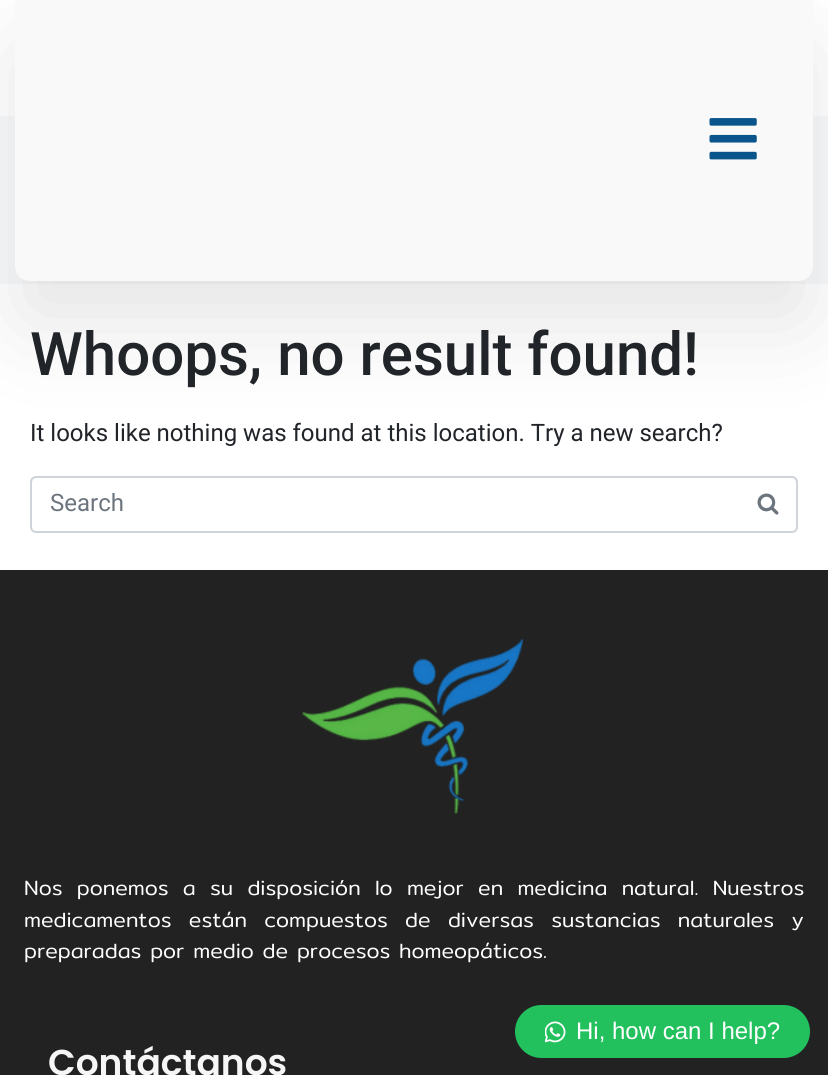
import math
import cairo


def use_color(cr, r, g, b):
  cr.set_source_rgb(r / 255, g / 255, b / 255)

def text(cr, x, y, s, family, size, color, bold=False, italic=False):
  cr.select_font_face(family, cairo.FONT_SLANT_ITALIC if italic else cairo.FONT_SLANT_NORMAL, cairo.FONT_WEIGHT_BOLD if bold else cairo.FONT_WEIGHT_NORMAL)
  cr.set_font_size(size)
  use_color(cr, *color)
  cr.move_to(x, y)
  cr.show_text(s)

def spaced_text(cr, x, y, s, letter, word):
  cr.move_to(x, y)
  for ch in s:
    cr.show_text(ch)
    cr.rel_move_to(letter + word * (ch == ' '), 0)

def box(cr, x, y, w, h, *color):
  use_color(cr, *color)
  cr.rectangle(x, y, w, h)
  cr.fill()

def round_rect(cr, x, y, w, h, r):
  cr.new_sub_path()
  for i, (u, v) in enumerate([(x + w - r, y + h - r), (x + r, y + h - r), (x + r, y + r), (x + w - r, y + r)]):
    cr.arc(u, v, r, i * math.pi / 2, (i + 1) * math.pi / 2)
  cr.close_path()

def shadow(cr, x, y, w, h, r, blur, alpha):
  cr.push_group_with_content(cairo.CONTENT_ALPHA)
  cr.set_operator(cairo.OPERATOR_SOURCE)
  for i in range(15, -16, -2):
    e = blur * i / 6
    if min(w, h) + 2 * e > 0:
      cr.set_source_rgba(0, 0, 0, alpha * math.erfc((i - 1) / 8.5) / 2)
      round_rect(cr, x - e, y - e, w + 2 * e, h + 2 * e, max(0, min(r + e + blur * .6, min(w, h) / 2 + e)))
      cr.fill()
  cr.mask(cr.pop_group())

def picture(cr, path, x, y, w, h):
  cr.save()
  cr.set_source_surface(cairo.ImageSurface.create_from_png(path), x, y)
  cr.rectangle(x, y, w, h)
  cr.fill()
  cr.restore()

def draw(cr):
  use_color(cr, 255, 255, 255)
  cr.paint()
  box(cr, 0, 116, 828, 168, 248, 249, 250)
  use_color(cr, 0, 0, 0)
  shadow(cr, 15, 45, 798, 281, 15, 45, 0.1)
  use_color(cr, 249, 249, 249)
  cr.new_path()
  cr.move_to(15, 0)
  cr.line_to(813, 0)
  cr.line_to(813, 266)
  cr.curve_to(813, 274.5, 806.5, 281, 798, 281)
  cr.line_to(30, 281)
  cr.curve_to(21.5, 281, 15, 274.5, 15, 266)
  cr.close_path()
  cr.fill()
  picture(cr, "img_01.png", 709, 118, 48, 42)
  use_color(cr, 236, 236, 236)
  cr.new_path()
  cr.move_to(36, 478)
  cr.line_to(792, 478)
  cr.curve_to(794, 478, 796, 481, 796, 483)
  cr.line_to(796, 529)
  cr.curve_to(797, 528, 797, 527, 797, 526)
  cr.line_to(797, 482)
  cr.curve_to(797, 479, 795, 477, 792, 477)
  cr.line_to(37, 477)
  cr.curve_to(34, 477, 32, 479, 32, 482)
  cr.line_to(32, 483)
  cr.curve_to(32, 481, 34, 478, 36, 478)
  cr.close_path()
  cr.fill()
  round_rect(cr, 31, 477, 766, 55, 5)
  use_color(cr, 206, 212, 218)
  cr.stroke()
  picture(cr, "img_02.png", 757, 493, 22, 22)
  box(cr, 0, 570, 828, 505, 34, 34, 34)
  picture(cr, "img_03.png", 302, 639, 222, 176)
  use_color(cr, 34, 193, 94)
  round_rect(cr, 515, 1005, 295, 53, 26.5)
  cr.fill()
  picture(cr, "img_04.png", 545, 1021, 21, 22)
  text(cr, 30, 375, "Whoops, no result found!", "Roboto Medium", 60, (33, 37, 41))
  text(cr, 30, 441, "It looks like nothing was found at this location. Try a new search?", "Roboto", 24, (33, 37, 41))
  text(cr, 50, 511, "Search", "Roboto", 24, (108, 117, 125))
  cr.select_font_face("Mitr Light")
  cr.set_font_size(21)
  use_color(cr, 255, 255, 255)
  spaced_text(cr, 24, 895, "Nos ponemos a su disposición lo mejor en medicina natural. Nuestros", 0, 5.5)
  spaced_text(cr, 24, 927, "medicamentos están compuestos de diversas sustancias naturales y", 0, 8.5)
  text(cr, 24, 958, "preparadas por medio de procesos homeopáticos.", "Mitr Light", 21, (255, 255, 255))
  text(cr, 48, 1075, "Contáctanos", "Poppins SemiBold", 36, (246, 246, 246))
  text(cr, 576, 1039, "Hi, how can I help?", "Liberation Sans", 24, (255, 255, 255))


surface = cairo.ImageSurface(cairo.FORMAT_RGB24, 828, 1075)
cr = cairo.Context(surface)
options = cairo.FontOptions()
options.set_hint_metrics(cairo.HINT_METRICS_OFF)
options.set_hint_style(cairo.HINT_STYLE_NONE)
cr.set_font_options(options)
cr.set_miter_limit(4)
draw(cr)
surface.write_to_png("out.png")
